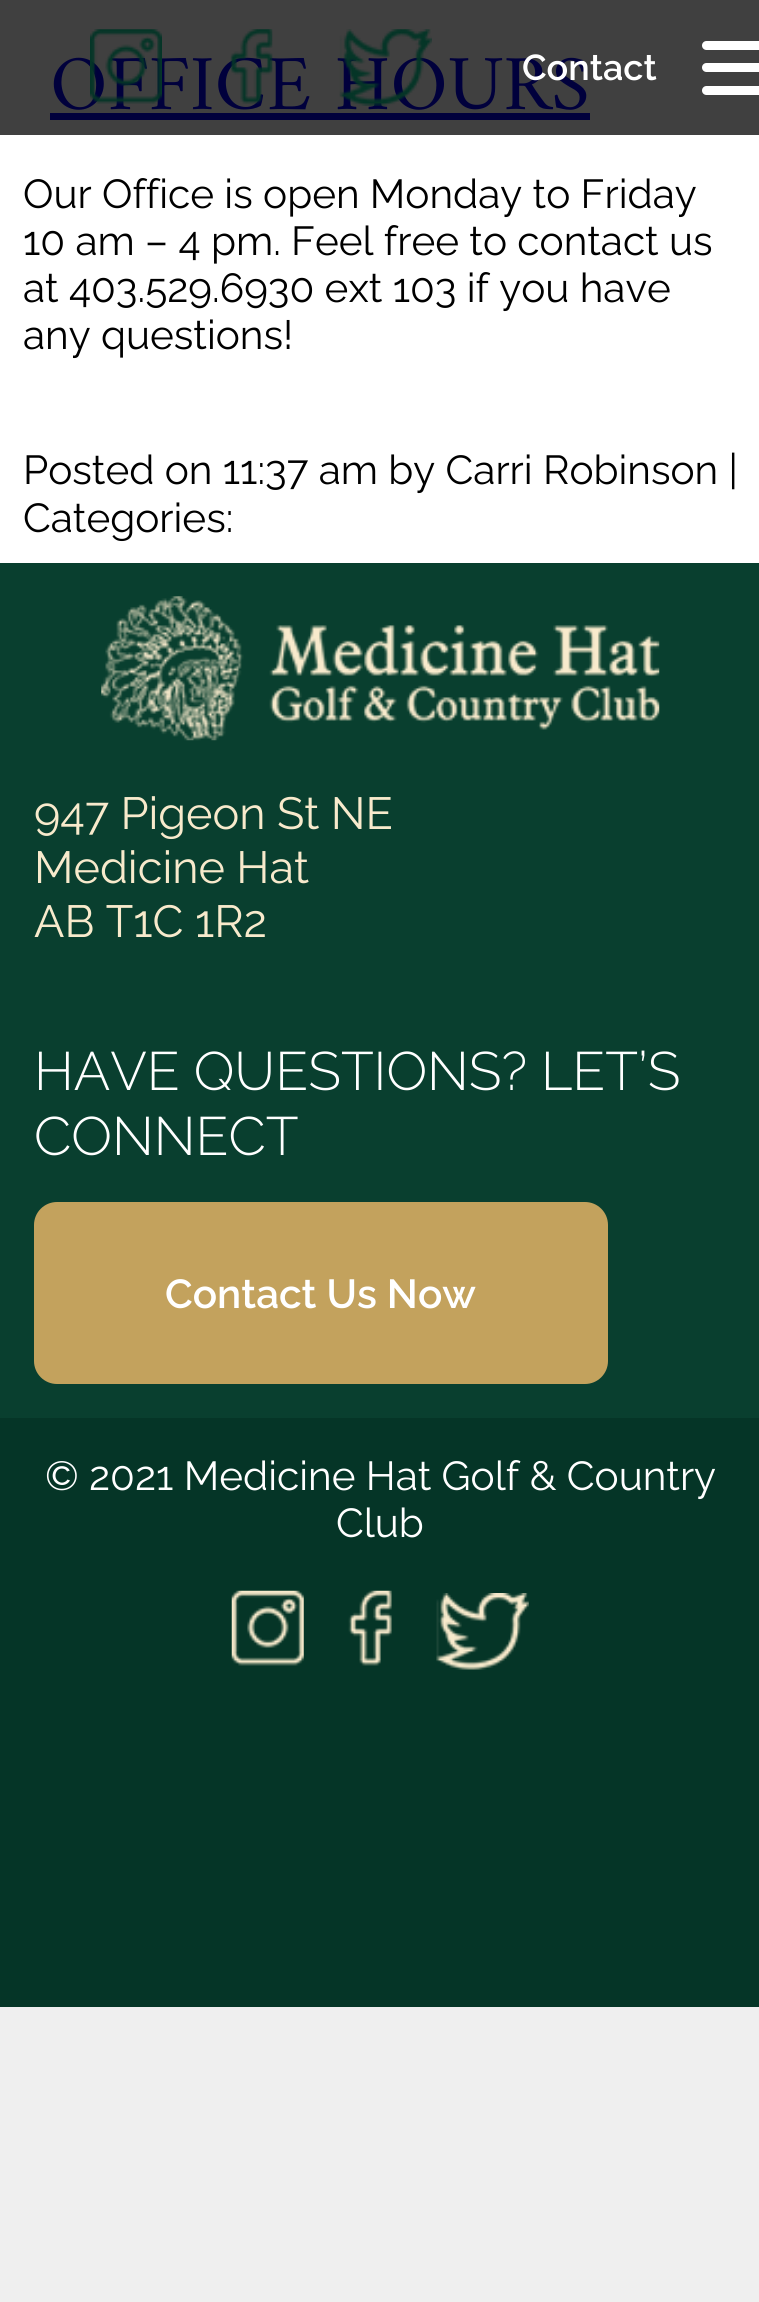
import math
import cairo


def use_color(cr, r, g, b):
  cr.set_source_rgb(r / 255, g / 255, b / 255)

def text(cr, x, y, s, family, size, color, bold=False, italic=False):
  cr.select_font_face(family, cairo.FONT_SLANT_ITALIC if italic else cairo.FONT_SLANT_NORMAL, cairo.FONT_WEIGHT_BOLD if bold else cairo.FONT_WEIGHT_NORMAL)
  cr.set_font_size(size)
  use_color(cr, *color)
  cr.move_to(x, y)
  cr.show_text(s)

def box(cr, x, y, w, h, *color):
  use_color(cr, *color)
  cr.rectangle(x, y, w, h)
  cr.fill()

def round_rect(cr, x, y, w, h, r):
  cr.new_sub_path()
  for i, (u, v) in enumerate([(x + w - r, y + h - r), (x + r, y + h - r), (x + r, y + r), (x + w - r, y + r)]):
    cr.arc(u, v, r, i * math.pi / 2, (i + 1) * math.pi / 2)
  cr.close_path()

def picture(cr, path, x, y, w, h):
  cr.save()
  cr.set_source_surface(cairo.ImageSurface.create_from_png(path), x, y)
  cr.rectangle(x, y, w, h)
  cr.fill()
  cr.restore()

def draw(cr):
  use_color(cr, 239, 239, 239)
  cr.paint()
  box(cr, 0, 0, 759, 135, 64, 64, 64)
  use_color(cr, 255, 255, 255)
  round_rect(cr, 702, 41, 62, 9, 4.5)
  cr.fill()
  round_rect(cr, 702, 63, 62, 9, 4.5)
  cr.fill()
  round_rect(cr, 702, 86, 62, 9, 4.5)
  cr.fill()
  box(cr, 0, 135, 759, 428, 255, 255, 255)
  box(cr, 50, 113, 540, 7, 0, 0, 60)
  box(cr, 0, 563, 759, 855, 9, 63, 47)
  picture(cr, "img_04.png", 101, 596, 559, 145)
  use_color(cr, 195, 162, 93)
  round_rect(cr, 34, 1202, 574, 182, 23)
  cr.fill()
  box(cr, 0, 1418, 759, 589, 5, 53, 39)
  picture(cr, "img_05.png", 231, 1590, 73, 76)
  picture(cr, "img_06.png", 348, 1590, 44, 76)
  picture(cr, "img_07.png", 436, 1593, 93, 77)
  text(cr, 50, 109, "OFFICE HOURS", "Amiri", 78.75, (0, 0, 60))
  text(cr, 522, 80, "Contact", "Raleway SemiBold", 36, (255, 255, 255))
  picture(cr, "img_03.png", 339, 29, 93, 77)
  picture(cr, "img_02.png", 230, 29, 43, 75)
  picture(cr, "img_01.png", 90, 29, 72, 75)
  text(cr, 23, 208, "Our Office is open Monday to Friday", "Raleway", 40.5, (0, 0, 0))
  text(cr, 23, 255, "10 am – 4 pm. Feel free to contact us", "Raleway", 40.5, (0, 0, 0))
  text(cr, 23, 302, "at 403.529.6930 ext 103 if you have", "Raleway", 40.5, (0, 0, 0))
  text(cr, 23, 349, "any questions!", "Raleway", 40.5, (0, 0, 0))
  text(cr, 23, 484, "Posted on 11:37 am by Carri Robinson |", "Raleway", 40.5, (0, 0, 0))
  text(cr, 23, 532, "Categories:", "Raleway", 40.5, (0, 0, 0))
  text(cr, 34, 829, "947 Pigeon St NE", "Raleway", 45, (248, 234, 204))
  text(cr, 34, 883, "Medicine Hat", "Raleway", 45, (248, 234, 204))
  text(cr, 34, 937, "AB T1C 1R2", "Raleway", 45, (248, 234, 204))
  text(cr, 34, 1090, "HAVE QUESTIONS? LET’S", "Raleway Light", 54, (255, 255, 255))
  text(cr, 34, 1155, "CONNECT", "Raleway Light", 54, (255, 255, 255))
  text(cr, 165, 1308, "Contact Us Now", "Raleway SemiBold", 40.5, (255, 255, 255))
  text(cr, 45, 1490, "© 2021 Medicine Hat Golf & Country", "Raleway", 40.5, (255, 255, 255))
  text(cr, 336, 1537, "Club", "Raleway", 40.5, (255, 255, 255))


surface = cairo.ImageSurface(cairo.FORMAT_RGB24, 759, 2302)
cr = cairo.Context(surface)
options = cairo.FontOptions()
options.set_hint_metrics(cairo.HINT_METRICS_OFF)
options.set_hint_style(cairo.HINT_STYLE_NONE)
cr.set_font_options(options)
cr.set_miter_limit(4)
draw(cr)
surface.write_to_png("out.png")
